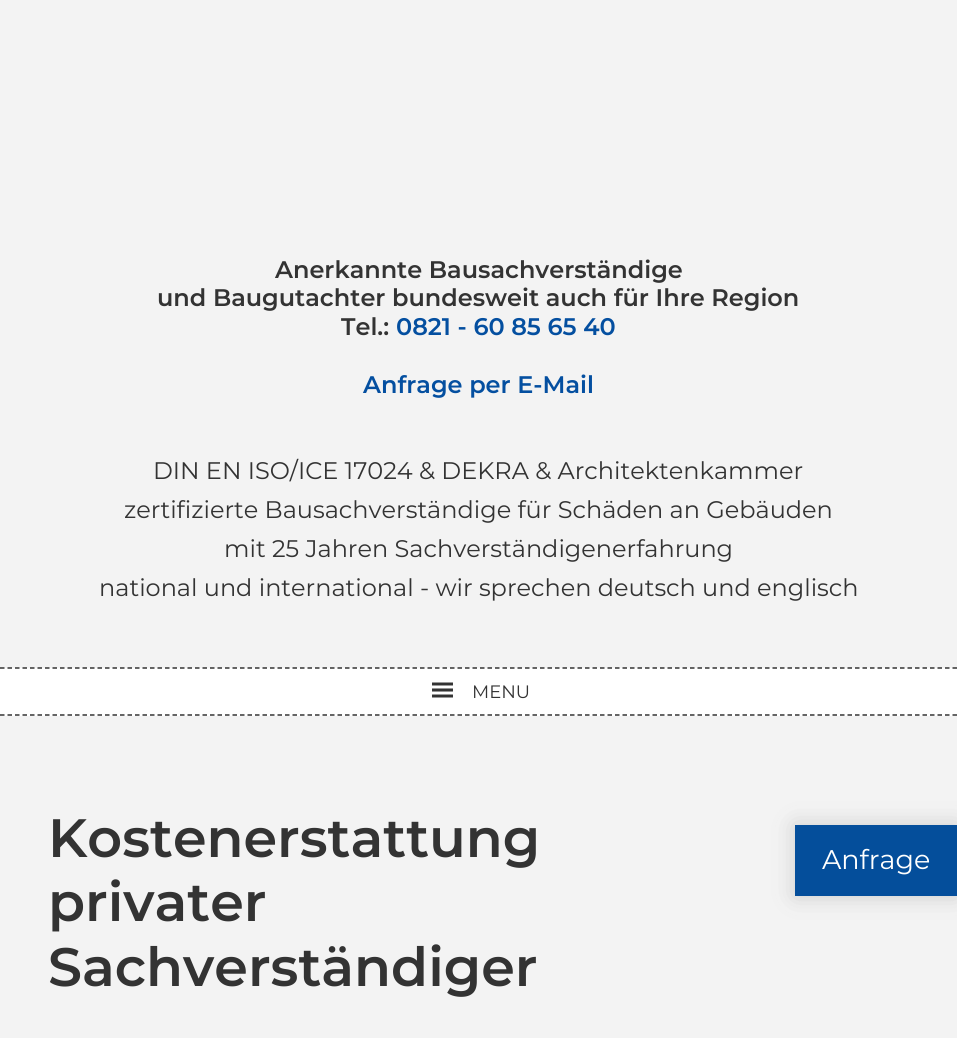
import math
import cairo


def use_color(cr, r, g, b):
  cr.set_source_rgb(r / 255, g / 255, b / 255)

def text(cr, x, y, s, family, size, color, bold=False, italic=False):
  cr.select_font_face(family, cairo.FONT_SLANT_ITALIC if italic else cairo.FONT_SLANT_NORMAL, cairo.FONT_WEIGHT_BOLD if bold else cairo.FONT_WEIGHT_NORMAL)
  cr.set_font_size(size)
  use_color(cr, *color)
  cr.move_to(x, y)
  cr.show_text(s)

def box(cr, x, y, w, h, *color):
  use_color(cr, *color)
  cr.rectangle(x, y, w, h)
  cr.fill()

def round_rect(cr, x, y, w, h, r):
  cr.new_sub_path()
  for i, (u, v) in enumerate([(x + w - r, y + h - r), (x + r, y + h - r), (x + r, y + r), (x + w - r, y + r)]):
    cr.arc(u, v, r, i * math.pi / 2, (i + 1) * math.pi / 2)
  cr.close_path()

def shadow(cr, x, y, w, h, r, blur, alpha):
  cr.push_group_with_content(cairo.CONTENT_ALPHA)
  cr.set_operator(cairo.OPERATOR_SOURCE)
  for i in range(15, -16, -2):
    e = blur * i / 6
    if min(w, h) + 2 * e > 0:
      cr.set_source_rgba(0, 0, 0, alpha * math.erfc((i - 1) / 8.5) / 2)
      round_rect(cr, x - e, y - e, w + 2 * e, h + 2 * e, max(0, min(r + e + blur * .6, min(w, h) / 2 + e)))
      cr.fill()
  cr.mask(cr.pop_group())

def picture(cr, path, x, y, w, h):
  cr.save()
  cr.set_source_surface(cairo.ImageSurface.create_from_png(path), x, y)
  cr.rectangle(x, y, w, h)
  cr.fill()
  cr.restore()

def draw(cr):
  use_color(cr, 243, 243, 243)
  cr.paint()
  box(cr, 0, 668, 957, 48, 255, 255, 255)
  cr.new_path()
  cr.move_to(0, 668)
  cr.line_to(957, 668)
  use_color(cr, 51, 51, 51)
  cr.set_line_width(1.5)
  cr.set_dash([4.5, 3])
  cr.stroke()
  cr.new_path()
  cr.move_to(0, 715)
  cr.line_to(957, 715)
  cr.stroke()
  picture(cr, "img_01.png", 432, 682, 21, 16)
  use_color(cr, 204, 204, 204)
  shadow(cr, 795, 825, 162, 71, 0, 11, 1)
  box(cr, 795, 825, 162, 71, 4, 78, 155)
  text(cr, 275, 278, "Anerkannte Bausachverständige", "Montserrat SemiBold", 24, (51, 51, 51))
  text(cr, 157, 306, "und Baugutachter bundesweit auch für Ihre Region", "Montserrat SemiBold", 24, (51, 51, 51))
  text(cr, 341, 335, "Tel.:", "Montserrat SemiBold", 24, (51, 51, 51))
  text(cr, 396, 335, "0821 - 60 85 65 40", "Montserrat SemiBold", 24, (4, 79, 160))
  text(cr, 363, 393, "Anfrage per E-Mail", "Montserrat SemiBold", 24, (4, 79, 160))
  text(cr, 153, 479, "DIN EN ISO/ICE 17024 & DEKRA & Architektenkammer", "Montserrat", 24, (51, 51, 51))
  text(cr, 124, 518, "zertifizierte Bausachverständige für Schäden an Gebäuden", "Montserrat", 24, (51, 51, 51))
  text(cr, 224, 557, "mit 25 Jahren Sachverständigenerfahrung", "Montserrat", 24, (51, 51, 51))
  text(cr, 99, 596, "national und international - wir sprechen deutsch und englisch", "Montserrat", 24, (51, 51, 51))
  text(cr, 472, 698, "MENU", "Montserrat", 18, (51, 51, 51))
  text(cr, 48, 857, "Kostenerstattung", "Montserrat SemiBold", 54, (51, 51, 51))
  text(cr, 48, 921, "privater", "Montserrat SemiBold", 54, (51, 51, 51))
  text(cr, 48, 986, "Sachverständiger", "Montserrat SemiBold", 54, (51, 51, 51))
  text(cr, 822, 869, "Anfrage", "Montserrat", 27, (255, 255, 255))


surface = cairo.ImageSurface(cairo.FORMAT_RGB24, 957, 1038)
cr = cairo.Context(surface)
options = cairo.FontOptions()
options.set_hint_metrics(cairo.HINT_METRICS_OFF)
options.set_hint_style(cairo.HINT_STYLE_NONE)
cr.set_font_options(options)
cr.set_miter_limit(4)
draw(cr)
surface.write_to_png("out.png")
